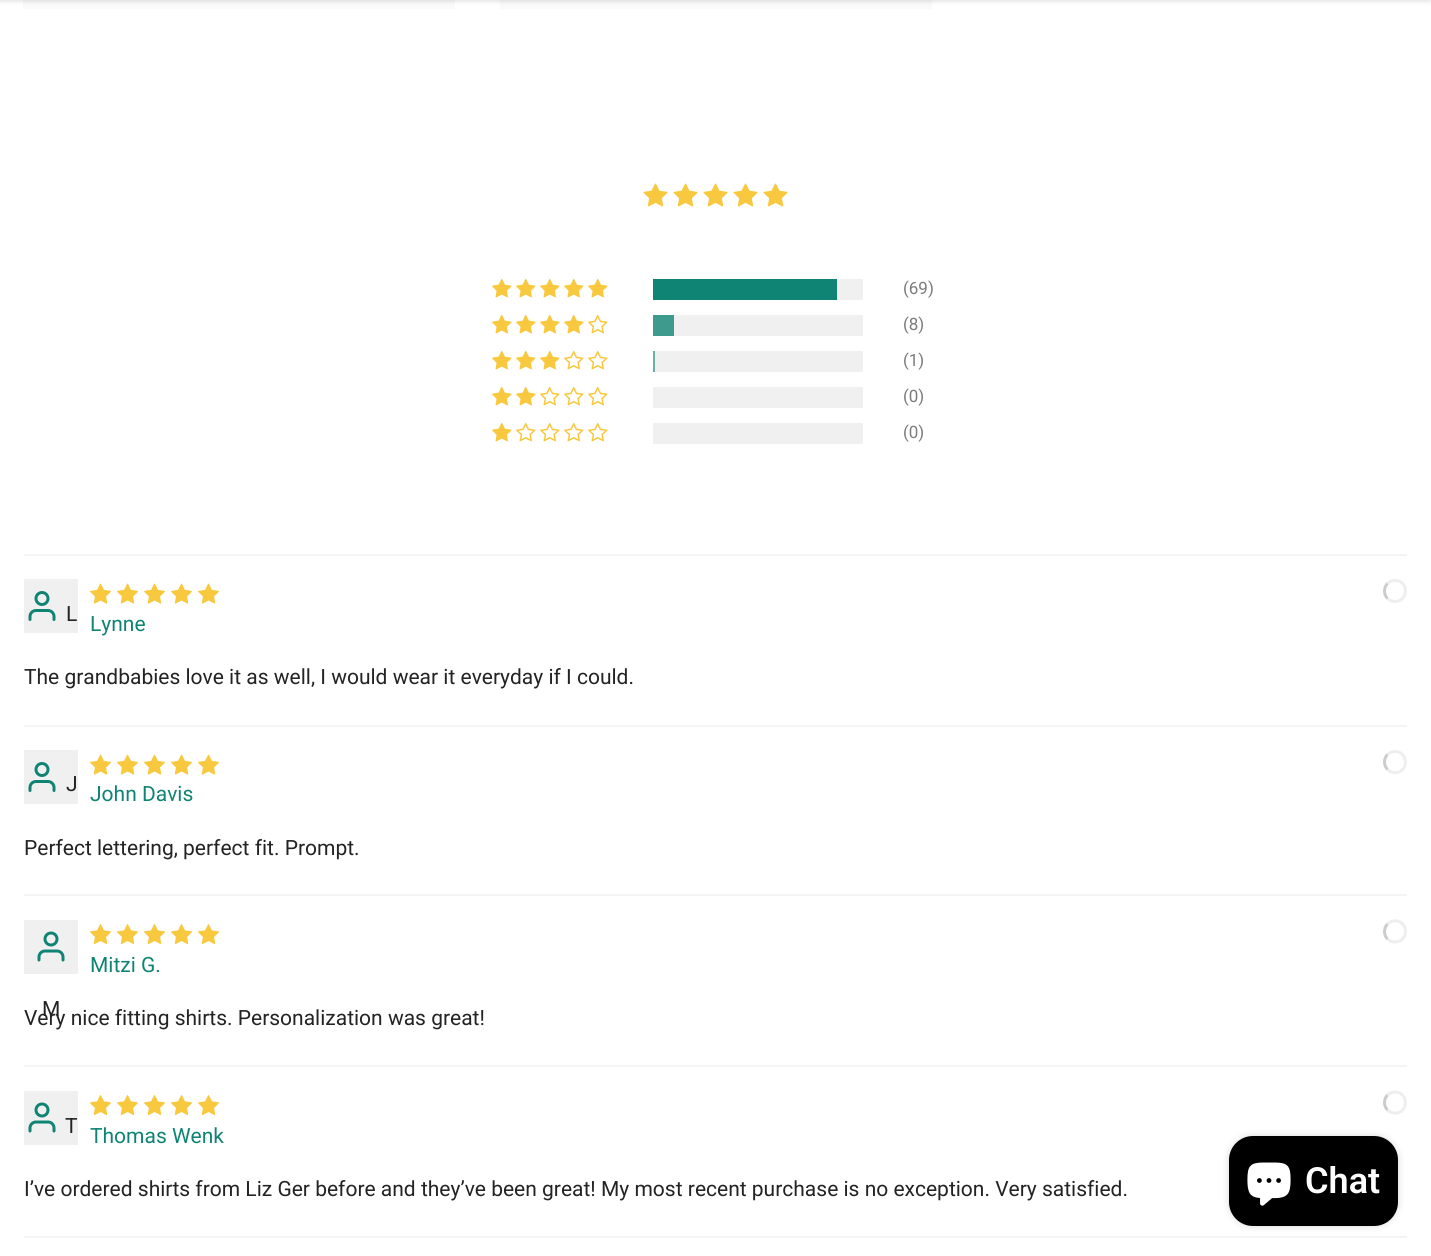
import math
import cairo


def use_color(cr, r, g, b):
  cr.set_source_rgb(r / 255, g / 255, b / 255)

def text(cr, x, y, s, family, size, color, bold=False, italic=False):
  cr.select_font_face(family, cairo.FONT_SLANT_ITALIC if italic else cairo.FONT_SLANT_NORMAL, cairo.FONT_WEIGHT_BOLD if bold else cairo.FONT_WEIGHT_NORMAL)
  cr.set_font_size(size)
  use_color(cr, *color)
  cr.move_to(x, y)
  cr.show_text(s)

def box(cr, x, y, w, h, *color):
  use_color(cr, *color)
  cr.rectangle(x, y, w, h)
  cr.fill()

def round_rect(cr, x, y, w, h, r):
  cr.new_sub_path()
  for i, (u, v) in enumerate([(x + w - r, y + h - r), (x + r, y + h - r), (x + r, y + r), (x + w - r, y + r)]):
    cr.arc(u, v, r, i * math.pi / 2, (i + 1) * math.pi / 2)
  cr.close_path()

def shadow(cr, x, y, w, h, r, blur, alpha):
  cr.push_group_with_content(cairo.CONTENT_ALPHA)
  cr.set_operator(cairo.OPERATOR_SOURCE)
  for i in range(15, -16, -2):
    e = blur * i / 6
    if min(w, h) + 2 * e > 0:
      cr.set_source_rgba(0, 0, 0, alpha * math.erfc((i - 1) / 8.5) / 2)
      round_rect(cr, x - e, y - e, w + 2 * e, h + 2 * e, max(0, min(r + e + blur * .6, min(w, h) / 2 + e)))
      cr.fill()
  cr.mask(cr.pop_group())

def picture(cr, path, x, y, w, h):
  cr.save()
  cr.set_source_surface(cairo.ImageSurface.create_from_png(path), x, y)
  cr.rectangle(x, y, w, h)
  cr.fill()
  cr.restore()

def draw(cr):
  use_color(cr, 255, 255, 255)
  cr.paint()
  gradient = cairo.LinearGradient(-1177, -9, 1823, -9)
  gradient.add_color_stop_rgba(0.04, 0.98, 0.98, 0.98, 1)
  gradient.add_color_stop_rgba(0.25, 0.945, 0.949, 0.953, 1)
  gradient.add_color_stop_rgba(0.36, 0.98, 0.98, 0.98, 1)
  cr.set_source(gradient)
  cr.rectangle(23, 0, 432, 9)
  cr.fill()
  gradient = cairo.LinearGradient(-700, -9, 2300, -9)
  gradient.add_color_stop_rgba(0.04, 0.98, 0.98, 0.98, 1)
  gradient.add_color_stop_rgba(0.25, 0.945, 0.949, 0.953, 1)
  gradient.add_color_stop_rgba(0.36, 0.98, 0.98, 0.98, 1)
  cr.set_source(gradient)
  cr.rectangle(500, 0, 432, 9)
  cr.fill()
  use_color(cr, 0, 0, 0)
  shadow(cr, 0, -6, 1431, 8, 0, 2, 0.1)
  picture(cr, "img_01.png", 643, 183, 25, 24)
  picture(cr, "img_01.png", 673, 183, 25, 24)
  picture(cr, "img_01.png", 703, 183, 25, 24)
  picture(cr, "img_01.png", 733, 183, 25, 24)
  picture(cr, "img_01.png", 763, 183, 25, 24)
  picture(cr, "img_02.png", 492, 278, 20, 20)
  picture(cr, "img_02.png", 516, 278, 20, 20)
  picture(cr, "img_02.png", 540, 278, 20, 20)
  picture(cr, "img_02.png", 564, 278, 20, 20)
  picture(cr, "img_02.png", 588, 278, 20, 20)
  box(cr, 837, 279, 26, 21, 240, 240, 240)
  box(cr, 653, 279, 184, 21, 16, 132, 116)
  picture(cr, "img_02.png", 492, 314, 20, 20)
  picture(cr, "img_02.png", 516, 314, 20, 20)
  picture(cr, "img_02.png", 540, 314, 20, 20)
  picture(cr, "img_02.png", 564, 314, 20, 20)
  picture(cr, "img_03.png", 588, 314, 20, 20)
  box(cr, 674, 315, 189, 21, 240, 240, 240)
  box(cr, 653, 315, 21, 21, 61, 154, 141)
  picture(cr, "img_02.png", 492, 350, 20, 20)
  picture(cr, "img_02.png", 516, 350, 20, 20)
  picture(cr, "img_02.png", 540, 350, 20, 20)
  picture(cr, "img_03.png", 564, 350, 20, 20)
  picture(cr, "img_03.png", 588, 350, 20, 20)
  box(cr, 655, 351, 208, 21, 240, 240, 240)
  box(cr, 653, 351, 2, 21, 106, 175, 166)
  picture(cr, "img_02.png", 492, 386, 20, 20)
  picture(cr, "img_02.png", 516, 386, 20, 20)
  picture(cr, "img_03.png", 540, 386, 20, 20)
  picture(cr, "img_03.png", 564, 386, 20, 20)
  picture(cr, "img_03.png", 588, 386, 20, 20)
  box(cr, 653, 387, 210, 21, 240, 240, 240)
  picture(cr, "img_02.png", 492, 422, 20, 20)
  picture(cr, "img_03.png", 516, 422, 20, 20)
  picture(cr, "img_03.png", 540, 422, 20, 20)
  picture(cr, "img_03.png", 564, 422, 20, 20)
  picture(cr, "img_03.png", 588, 422, 20, 20)
  box(cr, 653, 423, 210, 21, 240, 240, 240)
  box(cr, 24, 554, 1383, 2, 244, 244, 244)
  picture(cr, "img_04.png", 90, 583, 21, 21)
  picture(cr, "img_04.png", 117, 583, 21, 21)
  picture(cr, "img_04.png", 144, 583, 21, 21)
  picture(cr, "img_04.png", 171, 583, 21, 21)
  picture(cr, "img_04.png", 198, 583, 21, 21)
  cr.new_path()
  cr.move_to(1387.5, 583.5)
  cr.curve_to(1390, 581, 1393.5, 580, 1397, 580.5)
  cr.curve_to(1409.5, 583, 1407.5, 601.5, 1395, 601.5)
  cr.curve_to(1392, 601.5, 1389.5, 600.5, 1387.5, 598.5)
  use_color(cr, 238, 238, 238)
  cr.set_line_width(3)
  cr.stroke()
  cr.new_path()
  cr.move_to(1387.5, 598.5)
  cr.curve_to(1383.5, 594.5, 1383.5, 587.5, 1387.5, 583.5)
  use_color(cr, 204, 204, 204)
  cr.stroke()
  box(cr, 24, 579, 54, 54, 240, 240, 240)
  picture(cr, "img_05.png", 28, 591, 28, 30)
  box(cr, 24, 725, 1383, 2, 244, 244, 244)
  picture(cr, "img_04.png", 90, 754, 21, 21)
  picture(cr, "img_04.png", 117, 754, 21, 21)
  picture(cr, "img_04.png", 144, 754, 21, 21)
  picture(cr, "img_04.png", 171, 754, 21, 21)
  picture(cr, "img_04.png", 198, 754, 21, 21)
  cr.new_path()
  cr.move_to(1387.5, 754.5)
  cr.curve_to(1389.5, 752.5, 1392, 751.5, 1395, 751.5)
  cr.curve_to(1407.5, 751.5, 1409.5, 770, 1397, 772.5)
  cr.curve_to(1393.5, 773, 1390, 772, 1387.5, 769.5)
  use_color(cr, 238, 238, 238)
  cr.stroke()
  cr.new_path()
  cr.move_to(1387.5, 769.5)
  cr.curve_to(1383.5, 765.5, 1383.5, 758.5, 1387.5, 754.5)
  use_color(cr, 204, 204, 204)
  cr.stroke()
  box(cr, 24, 750, 54, 54, 240, 240, 240)
  picture(cr, "img_05.png", 28, 762, 28, 30)
  box(cr, 24, 894, 1383, 2, 244, 244, 244)
  picture(cr, "img_06.png", 90, 924, 21, 21)
  picture(cr, "img_06.png", 117, 924, 21, 21)
  picture(cr, "img_06.png", 144, 924, 21, 21)
  picture(cr, "img_06.png", 171, 924, 21, 21)
  picture(cr, "img_06.png", 198, 924, 21, 21)
  cr.new_path()
  cr.move_to(1387.5, 924)
  cr.curve_to(1390, 921.5, 1393.5, 920.5, 1397, 921)
  cr.curve_to(1409.5, 923.5, 1407.5, 942, 1395, 942)
  cr.curve_to(1392, 942, 1389.5, 941, 1387.5, 939)
  use_color(cr, 238, 238, 238)
  cr.stroke()
  cr.new_path()
  cr.move_to(1387.5, 939)
  cr.curve_to(1383.5, 935, 1383.5, 928, 1387.5, 924)
  use_color(cr, 204, 204, 204)
  cr.stroke()
  box(cr, 24, 920, 54, 54, 240, 240, 240)
  picture(cr, "img_07.png", 37, 931, 28, 31)
  box(cr, 24, 1065, 1383, 2, 244, 244, 244)
  picture(cr, "img_06.png", 90, 1095, 21, 21)
  picture(cr, "img_06.png", 117, 1095, 21, 21)
  picture(cr, "img_06.png", 144, 1095, 21, 21)
  picture(cr, "img_06.png", 171, 1095, 21, 21)
  picture(cr, "img_06.png", 198, 1095, 21, 21)
  cr.new_path()
  cr.move_to(1387.5, 1095)
  cr.curve_to(1389.5, 1093, 1392, 1092, 1395, 1092)
  cr.curve_to(1407.5, 1092, 1409.5, 1110.5, 1397, 1113)
  cr.curve_to(1393.5, 1113.5, 1390, 1112.5, 1387.5, 1110)
  use_color(cr, 238, 238, 238)
  cr.stroke()
  cr.new_path()
  cr.move_to(1387.5, 1110)
  cr.curve_to(1383.5, 1106, 1383.5, 1099, 1387.5, 1095)
  use_color(cr, 204, 204, 204)
  cr.stroke()
  box(cr, 24, 1091, 54, 54, 240, 240, 240)
  picture(cr, "img_07.png", 28, 1102, 28, 31)
  box(cr, 24, 1236, 1383, 2, 244, 244, 244)
  use_color(cr, 0, 0, 0)
  shadow(cr, 1229, 1136, 169, 90, 24, 4, 0.15)
  use_color(cr, 0, 0, 0)
  round_rect(cr, 1229, 1136, 169, 90, 24)
  cr.fill()
  picture(cr, "img_08.png", 1247, 1162, 44, 44)
  text(cr, 903, 294, "(69)", "Roboto", 17, (123, 123, 123))
  text(cr, 903, 330, "(8)", "Roboto", 17, (123, 123, 123))
  text(cr, 903, 366, "(1)", "Roboto", 17, (123, 123, 123))
  text(cr, 903, 402, "(0)", "Roboto", 17, (123, 123, 123))
  text(cr, 903, 438, "(0)", "Roboto", 17, (123, 123, 123))
  text(cr, 66, 621, "L", "Roboto", 21, (35, 35, 35))
  text(cr, 90, 631, "Lynne", "Roboto", 21, (16, 132, 116))
  text(cr, 24, 684, "The grandbabies love it as well, I would wear it everyday if I could.", "Roboto", 21, (35, 35, 35))
  text(cr, 66, 791, "J", "Roboto", 21, (35, 35, 35))
  text(cr, 90, 801, "John Davis", "Roboto", 21, (16, 132, 116))
  text(cr, 24, 855, "Perfect lettering, perfect fit. Prompt.", "Roboto", 21, (35, 35, 35))
  text(cr, 90, 972, "Mitzi G.", "Roboto", 21, (16, 132, 116))
  text(cr, 24, 1025, "Very nice fitting shirts. Personalization was great!", "Roboto", 21, (35, 35, 35))
  text(cr, 42, 1016, "M", "Roboto", 21, (35, 35, 35))
  text(cr, 65, 1133, "T", "Roboto", 21, (35, 35, 35))
  text(cr, 90, 1143, "Thomas Wenk", "Roboto", 21, (16, 132, 116))
  text(cr, 24, 1196, "I’ve ordered shirts from Liz Ger before and they’ve been great! My most recent purchase is no exception. Very satisfied.", "Roboto", 21, (35, 35, 35))
  text(cr, 1305, 1193, "Chat", "Roboto SemiBold", 36, (255, 255, 255))


surface = cairo.ImageSurface(cairo.FORMAT_RGB24, 1431, 1256)
cr = cairo.Context(surface)
options = cairo.FontOptions()
options.set_hint_metrics(cairo.HINT_METRICS_OFF)
options.set_hint_style(cairo.HINT_STYLE_NONE)
cr.set_font_options(options)
cr.set_miter_limit(4)
draw(cr)
surface.write_to_png("out.png")
